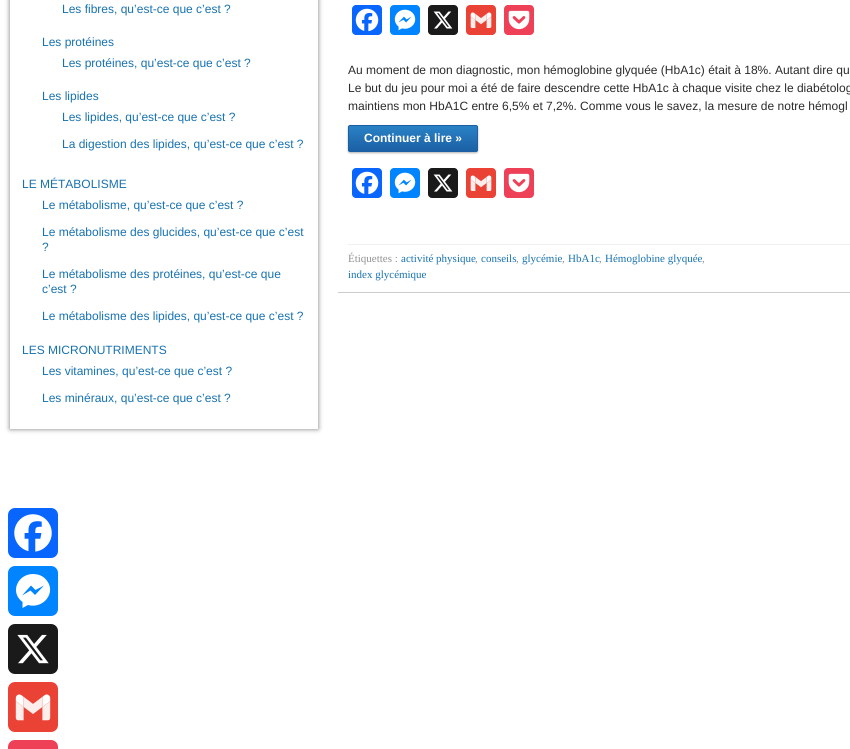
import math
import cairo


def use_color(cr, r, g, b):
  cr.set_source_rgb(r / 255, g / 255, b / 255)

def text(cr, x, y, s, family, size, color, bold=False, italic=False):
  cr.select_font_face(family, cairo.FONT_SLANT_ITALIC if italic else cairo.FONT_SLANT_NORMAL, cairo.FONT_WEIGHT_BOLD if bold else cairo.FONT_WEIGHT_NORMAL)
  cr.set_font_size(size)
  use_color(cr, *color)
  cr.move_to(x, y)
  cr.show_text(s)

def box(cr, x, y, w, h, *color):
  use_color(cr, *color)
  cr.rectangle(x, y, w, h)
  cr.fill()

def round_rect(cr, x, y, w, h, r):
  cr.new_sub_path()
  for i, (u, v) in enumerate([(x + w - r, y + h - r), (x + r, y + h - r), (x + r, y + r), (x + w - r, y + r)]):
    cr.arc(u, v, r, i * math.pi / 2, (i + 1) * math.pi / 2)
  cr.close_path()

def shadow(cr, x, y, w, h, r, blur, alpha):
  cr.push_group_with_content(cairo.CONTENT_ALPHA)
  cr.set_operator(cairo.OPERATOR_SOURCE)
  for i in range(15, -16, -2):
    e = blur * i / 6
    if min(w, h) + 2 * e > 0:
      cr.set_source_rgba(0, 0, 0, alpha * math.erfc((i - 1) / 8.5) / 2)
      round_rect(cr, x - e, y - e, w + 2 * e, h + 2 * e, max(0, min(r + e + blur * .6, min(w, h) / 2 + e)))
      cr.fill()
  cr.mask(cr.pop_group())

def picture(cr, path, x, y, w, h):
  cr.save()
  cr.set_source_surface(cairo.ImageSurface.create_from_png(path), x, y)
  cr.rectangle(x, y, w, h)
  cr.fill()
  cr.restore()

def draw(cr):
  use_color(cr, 255, 255, 255)
  cr.paint()
  cr.save()
  cr.set_fill_rule(cairo.FILL_RULE_EVEN_ODD)
  cr.new_path()
  cr.move_to(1, 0)
  cr.line_to(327, 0)
  cr.line_to(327, 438)
  cr.line_to(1, 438)
  cr.close_path()
  cr.move_to(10, -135)
  cr.line_to(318, -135)
  cr.line_to(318, 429)
  cr.line_to(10, 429)
  cr.close_path()
  cr.clip()
  use_color(cr, 120, 121, 119)
  shadow(cr, 10, -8, 308, 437, 0, 2.5, 1)
  cr.restore()
  box(cr, 338, 292, 512, 1, 204, 204, 204)
  use_color(cr, 8, 102, 255)
  round_rect(cr, 352, 5, 30, 30, 4)
  cr.fill()
  picture(cr, "img_01.png", 355, 8, 24, 24)
  use_color(cr, 0, 132, 255)
  round_rect(cr, 390, 5, 30, 30, 4)
  cr.fill()
  picture(cr, "img_02.png", 394, 9, 22, 22)
  use_color(cr, 26, 26, 26)
  round_rect(cr, 428, 5, 30, 30, 4)
  cr.fill()
  picture(cr, "img_03.png", 433, 11, 20, 18)
  use_color(cr, 234, 67, 53)
  round_rect(cr, 466, 5, 30, 30, 4)
  cr.fill()
  picture(cr, "img_04.png", 470, 12, 22, 16)
  use_color(cr, 238, 64, 86)
  round_rect(cr, 504, 5, 30, 30, 4)
  cr.fill()
  picture(cr, "img_05.png", 508, 10, 22, 20)
  use_color(cr, 0, 0, 0)
  shadow(cr, 348, 126, 130, 27, 2, 1, 0.3)
  cr.save()
  round_rect(cr, 348, 125, 130, 27, 2)
  cr.clip()
  gradient = cairo.LinearGradient(413, 126, 413, 151)
  gradient.add_color_stop_rgba(0, 0.161, 0.51, 0.773, 1)
  gradient.add_color_stop_rgba(1, 0.11, 0.373, 0.647, 1)
  cr.set_source(gradient)
  cr.rectangle(348, 126, 130, 25)
  cr.fill()
  cr.restore()
  round_rect(cr, 348.5, 125.5, 129, 26, 1.5)
  use_color(cr, 28, 95, 165)
  cr.set_line_width(1)
  cr.stroke()
  use_color(cr, 8, 102, 255)
  round_rect(cr, 352, 168, 30, 30, 4)
  cr.fill()
  picture(cr, "img_01.png", 355, 171, 24, 24)
  use_color(cr, 0, 132, 255)
  round_rect(cr, 390, 168, 30, 30, 4)
  cr.fill()
  picture(cr, "img_02.png", 394, 172, 22, 22)
  use_color(cr, 26, 26, 26)
  round_rect(cr, 428, 168, 30, 30, 4)
  cr.fill()
  picture(cr, "img_03.png", 433, 174, 20, 18)
  use_color(cr, 234, 67, 53)
  round_rect(cr, 466, 168, 30, 30, 4)
  cr.fill()
  picture(cr, "img_04.png", 470, 175, 22, 16)
  use_color(cr, 238, 64, 86)
  round_rect(cr, 504, 168, 30, 30, 4)
  cr.fill()
  picture(cr, "img_05.png", 508, 173, 22, 20)
  box(cr, 348, 244, 502, 1, 240, 240, 240)
  use_color(cr, 8, 102, 255)
  round_rect(cr, 8, 508, 50, 50, 7)
  cr.fill()
  picture(cr, "img_06.png", 14, 514, 38, 38)
  use_color(cr, 0, 132, 255)
  round_rect(cr, 8, 566, 50, 50, 7)
  cr.fill()
  use_color(cr, 255, 255, 255)
  cr.new_path()
  cr.move_to(33, 574)
  cr.curve_to(17.5, 574, 9.5, 592.5, 22.5, 602)
  cr.line_to(22.5, 608)
  cr.line_to(28, 605)
  cr.curve_to(44, 609.5, 58, 591, 45, 578.5)
  cr.curve_to(42, 575.5, 37.5, 574, 33, 574)
  cr.move_to(35, 595)
  cr.line_to(30.5, 590.5)
  cr.line_to(22, 595.5)
  cr.line_to(31, 585.5)
  cr.line_to(35.5, 590)
  cr.line_to(44, 585.5)
  cr.close_path()
  cr.fill()
  use_color(cr, 26, 26, 26)
  round_rect(cr, 8, 624, 50, 50, 7)
  cr.fill()
  picture(cr, "img_07.png", 17, 634, 32, 30)
  use_color(cr, 234, 67, 53)
  round_rect(cr, 8, 682, 50, 50, 7)
  cr.fill()
  picture(cr, "img_08.png", 15, 694, 36, 27)
  use_color(cr, 238, 64, 86)
  round_rect(cr, 8, 740, 50, 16, 7)
  cr.fill()
  text(cr, 62, 13, "Les fibres, qu’est-ce que c’est ?", "Liberation Sans", 12, (23, 114, 175))
  text(cr, 42, 46, "Les protéines", "Liberation Sans", 12, (23, 114, 175))
  text(cr, 62, 67, "Les protéines, qu’est-ce que c’est ?", "Liberation Sans", 12, (23, 114, 175))
  text(cr, 42, 100, "Les lipides", "Liberation Sans", 12, (23, 114, 175))
  text(cr, 62, 121, "Les lipides, qu’est-ce que c’est ?", "Liberation Sans", 12, (23, 114, 175))
  text(cr, 62, 148, "La digestion des lipides, qu’est-ce que c’est ?", "Liberation Sans", 12, (23, 114, 175))
  text(cr, 22, 188, "LE MÉTABOLISME", "Liberation Sans", 12, (23, 114, 175))
  text(cr, 42, 209, "Le métabolisme, qu’est-ce que c’est ?", "Liberation Sans", 12, (23, 114, 175))
  text(cr, 42, 236, "Le métabolisme des glucides, qu’est-ce que c’est", "Liberation Sans", 12, (23, 114, 175))
  text(cr, 42, 251, "?", "Liberation Sans", 12, (23, 114, 175))
  text(cr, 42, 278, "Le métabolisme des protéines, qu’est-ce que", "Liberation Sans", 12, (23, 114, 175))
  text(cr, 42, 293, "c’est ?", "Liberation Sans", 12, (23, 114, 175))
  text(cr, 42, 320, "Le métabolisme des lipides, qu’est-ce que c’est ?", "Liberation Sans", 12, (23, 114, 175))
  text(cr, 22, 354, "LES MICRONUTRIMENTS", "Liberation Sans", 12, (23, 114, 175))
  text(cr, 42, 375, "Les vitamines, qu’est-ce que c’est ?", "Liberation Sans", 12, (23, 114, 175))
  text(cr, 42, 402, "Les minéraux, qu’est-ce que c’est ?", "Liberation Sans", 12, (23, 114, 175))
  text(cr, 348, 74, "Au moment de mon diagnostic, mon hémoglobine glyquée (HbA1c) était à 18%. Autant dire qu", "Liberation Sans", 12, (44, 43, 43))
  text(cr, 348, 92, "Le but du jeu pour moi a été de faire descendre cette HbA1c à chaque visite chez le diabétolog", "Liberation Sans", 12, (44, 43, 43))
  text(cr, 348, 110, "maintiens mon HbA1C entre 6,5% et 7,2%. Comme vous le savez, la mesure de notre hémogl", "Liberation Sans", 12, (44, 43, 43))
  text(cr, 364, 142, "Continuer à lire »", "Liberation Sans", 12, (255, 255, 255), bold=True)
  text(cr, 348, 262, "Étiquettes :", "Liberation Serif", 11, (146, 146, 146))
  text(cr, 401, 262, "activité physique", "Liberation Serif", 11, (23, 114, 175))
  text(cr, 475, 262, ",", "Liberation Serif", 11, (146, 146, 146))
  text(cr, 481, 262, "conseils", "Liberation Serif", 11, (23, 114, 175))
  text(cr, 516, 262, ",", "Liberation Serif", 11, (146, 146, 146))
  text(cr, 522, 262, "glycémie", "Liberation Serif", 11, (23, 114, 175))
  text(cr, 562, 262, ",", "Liberation Serif", 11, (146, 146, 146))
  text(cr, 568, 262, "HbA1c", "Liberation Serif", 11, (23, 114, 175))
  text(cr, 599, 262, ",", "Liberation Serif", 11, (146, 146, 146))
  text(cr, 605, 262, "Hémoglobine glyquée", "Liberation Serif", 11, (23, 114, 175))
  text(cr, 702, 262, ",", "Liberation Serif", 11, (146, 146, 146))
  text(cr, 348, 278, "index glycémique", "Liberation Serif", 11, (23, 114, 175))


surface = cairo.ImageSurface(cairo.FORMAT_RGB24, 850, 749)
cr = cairo.Context(surface)
options = cairo.FontOptions()
options.set_hint_metrics(cairo.HINT_METRICS_OFF)
options.set_hint_style(cairo.HINT_STYLE_NONE)
cr.set_font_options(options)
cr.set_miter_limit(4)
draw(cr)
surface.write_to_png("out.png")
